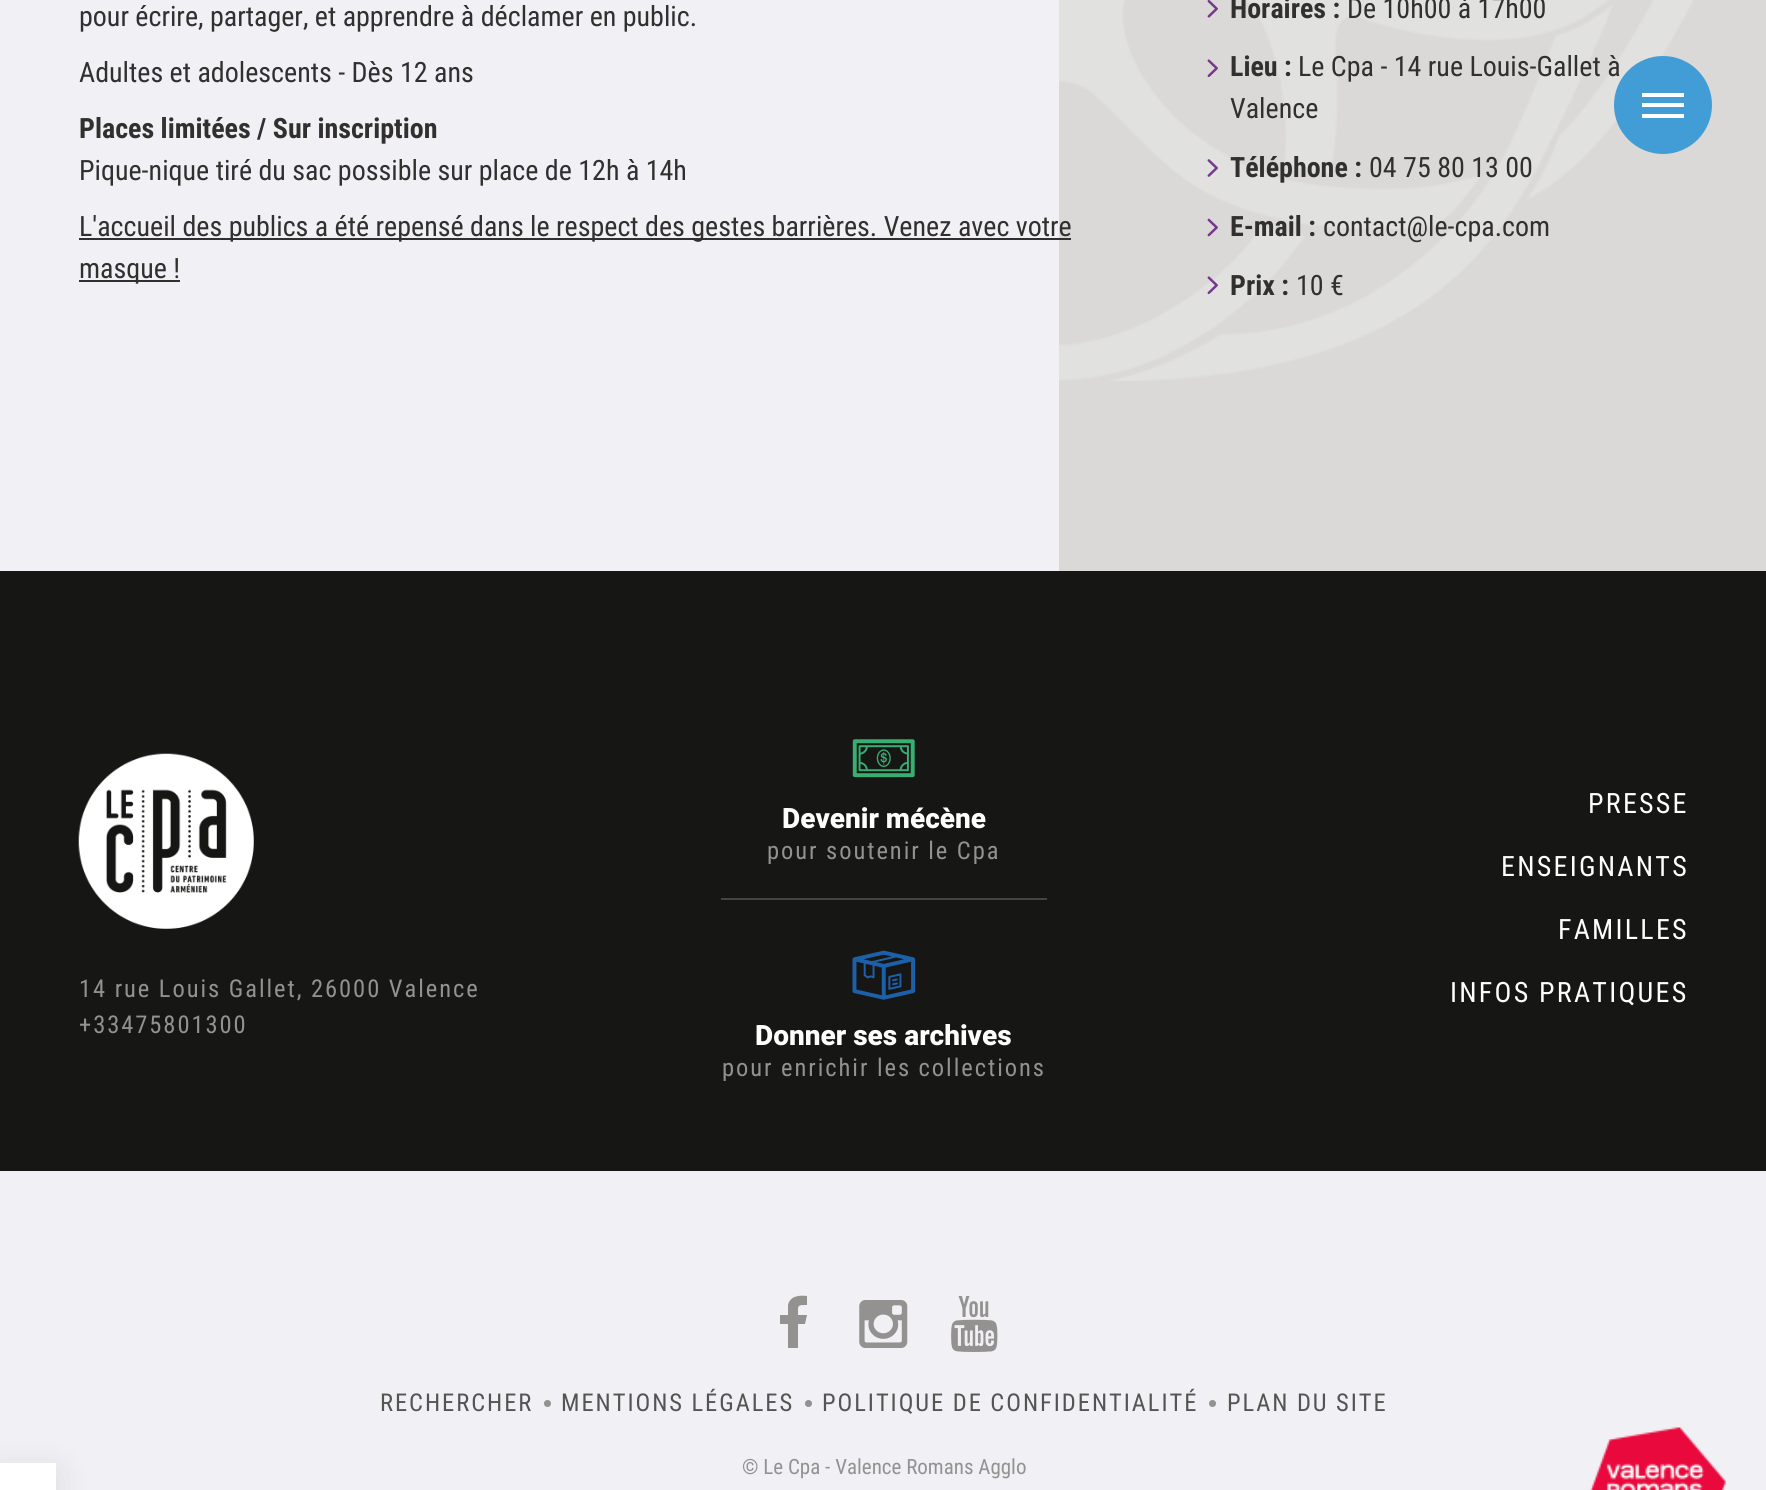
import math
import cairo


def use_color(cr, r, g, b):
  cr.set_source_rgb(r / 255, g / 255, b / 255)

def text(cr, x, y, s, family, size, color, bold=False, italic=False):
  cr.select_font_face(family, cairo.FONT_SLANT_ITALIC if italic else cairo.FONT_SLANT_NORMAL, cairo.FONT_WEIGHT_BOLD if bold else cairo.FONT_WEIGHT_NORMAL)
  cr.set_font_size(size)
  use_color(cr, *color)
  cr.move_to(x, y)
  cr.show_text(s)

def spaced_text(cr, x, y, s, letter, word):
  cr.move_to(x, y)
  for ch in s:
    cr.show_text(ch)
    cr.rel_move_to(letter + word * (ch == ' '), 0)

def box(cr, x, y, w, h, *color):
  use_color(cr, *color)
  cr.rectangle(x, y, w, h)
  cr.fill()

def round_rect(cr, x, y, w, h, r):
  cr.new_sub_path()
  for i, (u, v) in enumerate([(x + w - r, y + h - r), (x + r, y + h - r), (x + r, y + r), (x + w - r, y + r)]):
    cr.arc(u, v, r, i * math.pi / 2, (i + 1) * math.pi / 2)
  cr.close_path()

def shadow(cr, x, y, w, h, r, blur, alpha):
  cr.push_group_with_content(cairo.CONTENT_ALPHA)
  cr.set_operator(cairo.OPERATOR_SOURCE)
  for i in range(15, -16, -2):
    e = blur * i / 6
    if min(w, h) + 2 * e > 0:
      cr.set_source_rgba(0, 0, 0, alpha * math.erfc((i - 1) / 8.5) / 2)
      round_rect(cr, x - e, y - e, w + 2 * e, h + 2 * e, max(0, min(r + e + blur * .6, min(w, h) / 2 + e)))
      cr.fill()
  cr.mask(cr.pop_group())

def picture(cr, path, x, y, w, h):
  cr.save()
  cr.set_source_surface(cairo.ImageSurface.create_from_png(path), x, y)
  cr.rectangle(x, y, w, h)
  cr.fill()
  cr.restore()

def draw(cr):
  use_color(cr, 240, 240, 245)
  cr.paint()
  box(cr, 1059, 0, 707, 571, 218, 217, 215)
  picture(cr, "img_01.png", 1059, 0, 634, 381)
  box(cr, 79, 238, 992, 2, 49, 48, 47)
  box(cr, 79, 280, 101, 2, 49, 48, 47)
  picture(cr, "img_02.png", 1207, 0, 11, 18)
  picture(cr, "img_03.png", 1207, 59, 11, 19)
  picture(cr, "img_04.png", 1207, 159, 11, 18)
  picture(cr, "img_05.png", 1207, 218, 11, 19)
  picture(cr, "img_06.png", 1207, 276, 11, 19)
  use_color(cr, 22, 22, 21)
  shadow(cr, 0, 1472, 56, 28, 0, 17.5, 0.1)
  box(cr, 0, 1463, 56, 27, 255, 255, 255)
  box(cr, 0, 571, 1766, 600, 22, 22, 21)
  picture(cr, "img_07.png", 78, 753, 176, 176)
  picture(cr, "img_08.png", 852, 739, 63, 39)
  box(cr, 721, 898, 326, 2, 69, 69, 68)
  picture(cr, "img_09.png", 852, 950, 63, 50)
  use_color(cr, 148, 146, 144)
  cr.new_path()
  cr.move_to(807, 1296)
  cr.line_to(807, 1305)
  cr.curve_to(797, 1305, 798, 1305, 798, 1315)
  cr.line_to(807, 1315)
  cr.line_to(805, 1324)
  cr.line_to(798, 1324)
  cr.line_to(798, 1348)
  cr.line_to(788, 1348)
  cr.line_to(788, 1324)
  cr.line_to(780, 1324)
  cr.line_to(780, 1315)
  cr.line_to(788, 1315)
  cr.line_to(788, 1305)
  cr.curve_to(790, 1296, 799, 1295, 807, 1296)
  cr.close_path()
  cr.fill()
  picture(cr, "img_10.png", 859, 1300, 49, 48)
  picture(cr, "img_11.png", 951, 1296, 47, 56)
  cr.arc(547.5, 1403.5, 3.5, 0, 2 * math.pi)
  cr.fill()
  cr.arc(808.5, 1403.5, 3.5, 0, 2 * math.pi)
  cr.fill()
  cr.arc(1212.5, 1403.5, 3.5, 0, 2 * math.pi)
  cr.fill()
  picture(cr, "img_12.png", 1590, 1427, 136, 63)
  text(cr, 79, 26, "pour écrire, partager, et apprendre à déclamer en public.", "Roboto Condensed", 28, (49, 48, 47))
  text(cr, 79, 82, "Adultes et adolescents - Dès 12 ans", "Roboto Condensed", 28, (49, 48, 47))
  text(cr, 79, 138, "Places limitées / Sur inscription", "Roboto Condensed", 28, (49, 48, 47), bold=True)
  text(cr, 79, 180, "Pique-nique tiré du sac possible sur place de 12h à 14h", "Roboto Condensed", 28, (49, 48, 47))
  text(cr, 79, 236, "L'accueil des publics a été repensé dans le respect des gestes barrières. Venez avec votre", "Roboto Condensed", 28, (49, 48, 47))
  text(cr, 79, 278, "masque !", "Roboto Condensed", 28, (49, 48, 47))
  text(cr, 1230, 18, "Horaires :", "Roboto Condensed", 28, (49, 48, 47), bold=True)
  text(cr, 1347, 18, "De 10h00 à 17h00", "Roboto Condensed", 28, (49, 48, 47))
  text(cr, 1230, 76, "Lieu :", "Roboto Condensed", 28, (49, 48, 47), bold=True)
  text(cr, 1298, 76, "Le Cpa - 14 rue Louis-Gallet à", "Roboto Condensed", 28, (49, 48, 47))
  text(cr, 1230, 118, "Valence", "Roboto Condensed", 28, (49, 48, 47))
  text(cr, 1230, 177, "Téléphone :", "Roboto Condensed", 28, (49, 48, 47), bold=True)
  text(cr, 1369, 177, "04 75 80 13 00", "Roboto Condensed", 28, (49, 48, 47))
  text(cr, 1230, 236, "E-mail :", "Roboto Condensed", 28, (49, 48, 47), bold=True)
  text(cr, 1323, 236, "contact@le-cpa.com", "Roboto Condensed", 28, (49, 48, 47))
  text(cr, 1230, 295, "Prix :", "Roboto Condensed", 28, (49, 48, 47), bold=True)
  text(cr, 1296, 295, "10 €", "Roboto Condensed", 28, (49, 48, 47))
  use_color(cr, 66, 156, 213)
  cr.new_path()
  cr.arc(1663, 105, 49, 0, 2 * math.pi)
  cr.fill()
  box(cr, 1642, 93, 42, 4, 255, 255, 255)
  box(cr, 1642, 103, 42, 4, 255, 255, 255)
  box(cr, 1642, 114, 42, 4, 255, 255, 255)
  cr.set_font_size(24.5)
  use_color(cr, 148, 146, 144)
  spaced_text(cr, 79, 997, "14 rue Louis Gallet, 26000 Valence", 1.95, 0)
  spaced_text(cr, 79, 1033, "+33475801300", 1.95, 0)
  text(cr, 782, 828, "Devenir mécène", "Heebo ExtraBold", 28, (255, 255, 255))
  cr.select_font_face("Roboto Condensed")
  cr.set_font_size(24.5)
  use_color(cr, 148, 146, 144)
  spaced_text(cr, 767, 859, "pour soutenir le Cpa", 1.95, 0)
  text(cr, 755, 1045, "Donner ses archives", "Heebo ExtraBold", 28, (255, 255, 255))
  cr.select_font_face("Roboto Condensed")
  cr.set_font_size(24.5)
  use_color(cr, 148, 146, 144)
  spaced_text(cr, 722, 1076, "pour enrichir les collections", 1.95, 0)
  cr.set_font_size(28)
  use_color(cr, 255, 255, 255)
  spaced_text(cr, 1588, 813, "PRESSE", 2.25, 0)
  spaced_text(cr, 1501, 876, "ENSEIGNANTS", 2.25, 0)
  spaced_text(cr, 1558, 939, "FAMILLES", 2.25, 0)
  spaced_text(cr, 1450, 1002, "INFOS PRATIQUES", 2.25, 0)
  cr.set_font_size(24.5)
  use_color(cr, 86, 84, 82)
  spaced_text(cr, 380, 1411, "RECHERCHER", 1.95, 0)
  spaced_text(cr, 561, 1411, "MENTIONS LÉGALES", 1.95, 0)
  spaced_text(cr, 822, 1411, "POLITIQUE DE CONFIDENTIALITÉ", 1.95, 0)
  spaced_text(cr, 1227, 1411, "PLAN DU SITE", 1.95, 0)
  text(cr, 742, 1474, "© Le Cpa - Valence Romans Agglo", "Roboto Condensed", 21, (148, 146, 144))


surface = cairo.ImageSurface(cairo.FORMAT_RGB24, 1766, 1490)
cr = cairo.Context(surface)
options = cairo.FontOptions()
options.set_hint_metrics(cairo.HINT_METRICS_OFF)
options.set_hint_style(cairo.HINT_STYLE_NONE)
cr.set_font_options(options)
cr.set_miter_limit(4)
draw(cr)
surface.write_to_png("out.png")
